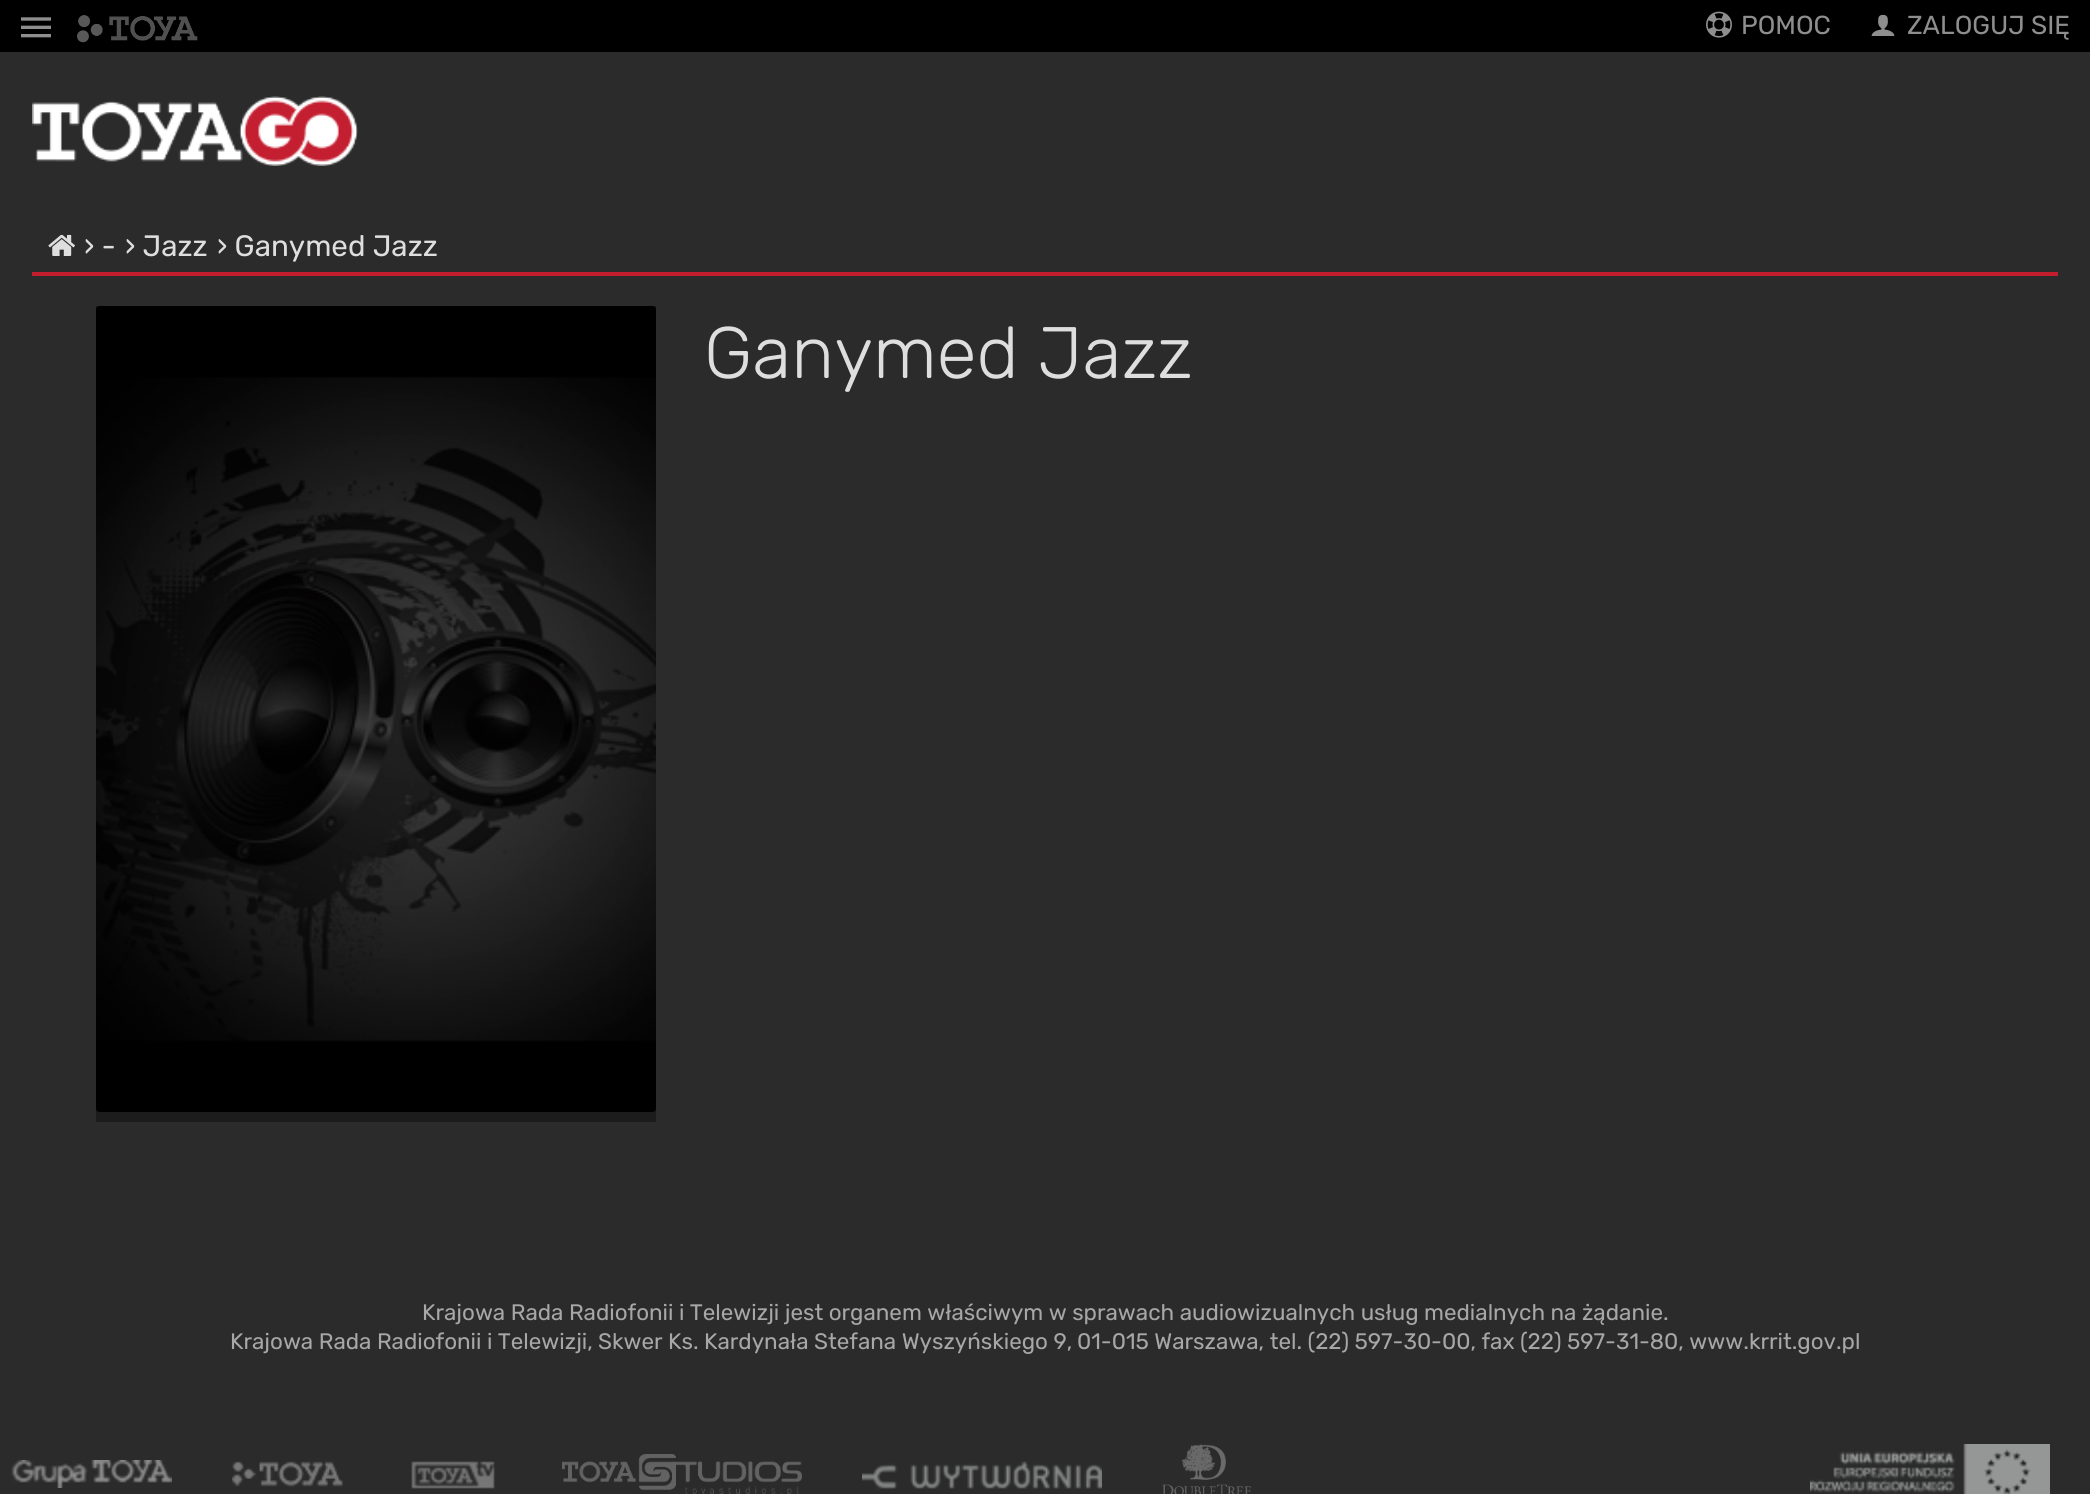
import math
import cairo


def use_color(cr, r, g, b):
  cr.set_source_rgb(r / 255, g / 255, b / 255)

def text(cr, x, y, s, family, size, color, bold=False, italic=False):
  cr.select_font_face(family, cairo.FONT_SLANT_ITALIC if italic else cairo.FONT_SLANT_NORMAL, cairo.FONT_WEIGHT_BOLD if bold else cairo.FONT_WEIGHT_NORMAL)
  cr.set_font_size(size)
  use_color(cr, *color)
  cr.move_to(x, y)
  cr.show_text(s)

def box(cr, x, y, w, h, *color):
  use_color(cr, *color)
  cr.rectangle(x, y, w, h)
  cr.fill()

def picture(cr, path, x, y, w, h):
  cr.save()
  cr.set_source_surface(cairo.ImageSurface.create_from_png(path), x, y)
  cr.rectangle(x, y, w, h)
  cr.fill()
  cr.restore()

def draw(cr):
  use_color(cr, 43, 43, 43)
  cr.paint()
  box(cr, 0, 0, 2090, 52, 0, 0, 0)
  picture(cr, "img_01.png", 1706, 11, 26, 27)
  picture(cr, "img_02.png", 1871, 14, 24, 22)
  picture(cr, "img_03.png", 32, 96, 326, 70)
  picture(cr, "img_04.png", 21, 17, 30, 21)
  picture(cr, "img_05.png", 77, 15, 121, 28)
  box(cr, 32, 272, 2026, 4, 194, 30, 46)
  picture(cr, "img_06.png", 48, 234, 27, 22)
  box(cr, 96, 306, 560, 816, 28, 28, 28)
  picture(cr, "img_07.png", 96, 306, 560, 806)
  picture(cr, "img_08.png", 11, 1460, 161, 28)
  picture(cr, "img_09.png", 232, 1461, 111, 26)
  picture(cr, "img_10.png", 411, 1461, 84, 28)
  picture(cr, "img_11.png", 562, 1454, 240, 40)
  picture(cr, "img_12.png", 862, 1461, 240, 28)
  picture(cr, "img_13.png", 1162, 1444, 90, 50)
  picture(cr, "img_14.png", 1810, 1444, 240, 50)
  text(cr, 1741, 34, "POMOC", "Rubik", 26, (142, 142, 142))
  text(cr, 1907, 34, "ZALOGUJ SIĘ", "Rubik", 26, (142, 142, 142))
  text(cr, 84, 256, "› -", "Rubik", 29.5, (222, 222, 222))
  text(cr, 125, 256, "› Jazz", "Rubik", 29.5, (222, 222, 222))
  text(cr, 217, 256, "› Ganymed Jazz", "Rubik", 29.5, (222, 222, 222))
  text(cr, 704, 378, "Ganymed Jazz", "Rubik Light", 72.75, (222, 222, 222))
  text(cr, 422, 1320, "Krajowa Rada Radiofonii i Telewizji jest organem właściwym w sprawach audiowizualnych usług medialnych na żądanie.", "Rubik", 22.4, (167, 167, 167))
  text(cr, 230, 1349, "Krajowa Rada Radiofonii i Telewizji,", "Rubik", 22.4, (167, 167, 167))
  text(cr, 598, 1349, "Skwer Ks. Kardynała Stefana Wyszyńskiego 9,", "Rubik", 22.4, (167, 167, 167))
  text(cr, 1077, 1349, "01-015 Warszawa, tel. (22) 597-30-00, fax (22) 597-31-80, www.krrit.gov.pl", "Rubik", 22.4, (167, 167, 167))


surface = cairo.ImageSurface(cairo.FORMAT_RGB24, 2090, 1494)
cr = cairo.Context(surface)
options = cairo.FontOptions()
options.set_hint_metrics(cairo.HINT_METRICS_OFF)
options.set_hint_style(cairo.HINT_STYLE_NONE)
cr.set_font_options(options)
cr.set_miter_limit(4)
draw(cr)
surface.write_to_png("out.png")
